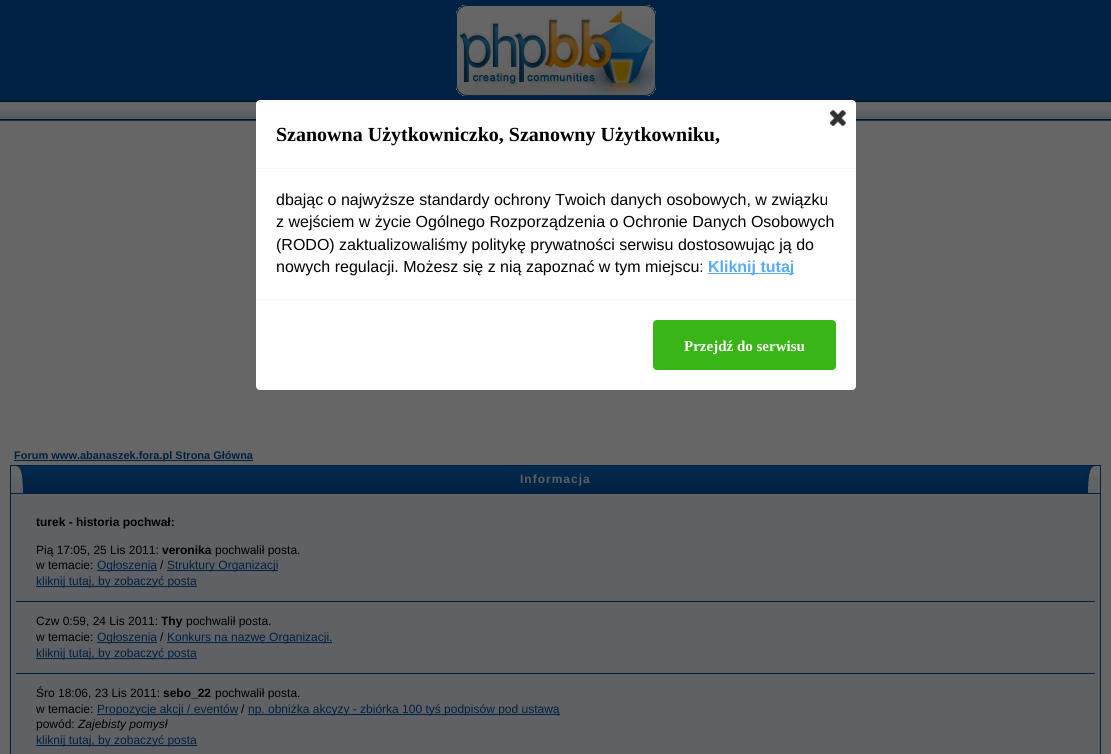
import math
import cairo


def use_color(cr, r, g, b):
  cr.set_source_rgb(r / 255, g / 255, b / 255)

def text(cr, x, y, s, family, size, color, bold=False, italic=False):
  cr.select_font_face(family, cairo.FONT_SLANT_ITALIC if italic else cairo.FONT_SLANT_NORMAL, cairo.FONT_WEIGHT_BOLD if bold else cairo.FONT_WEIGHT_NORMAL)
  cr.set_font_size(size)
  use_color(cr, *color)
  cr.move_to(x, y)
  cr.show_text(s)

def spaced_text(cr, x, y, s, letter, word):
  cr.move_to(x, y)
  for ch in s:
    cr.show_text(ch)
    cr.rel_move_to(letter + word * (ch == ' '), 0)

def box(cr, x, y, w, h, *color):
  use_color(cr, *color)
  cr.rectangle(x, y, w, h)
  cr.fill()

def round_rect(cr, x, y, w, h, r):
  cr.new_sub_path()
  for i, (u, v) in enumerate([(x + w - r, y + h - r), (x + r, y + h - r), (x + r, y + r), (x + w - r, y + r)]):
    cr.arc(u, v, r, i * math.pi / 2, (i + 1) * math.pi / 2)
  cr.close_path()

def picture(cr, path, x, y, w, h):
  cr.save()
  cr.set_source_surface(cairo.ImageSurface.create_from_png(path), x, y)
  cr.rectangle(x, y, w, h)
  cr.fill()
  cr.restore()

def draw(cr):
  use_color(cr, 102, 102, 102)
  cr.paint()
  box(cr, 0, 0, 1111, 101, 0, 33, 65)
  picture(cr, "img_03.png", 0, 101, 1111, 20)
  use_color(cr, 255, 255, 255)
  round_rect(cr, 256, 100, 600, 290, 4)
  cr.fill()
  box(cr, 256, 168, 600, 1, 245, 245, 245)
  picture(cr, "img_01.png", 830, 110, 16, 16)
  box(cr, 708, 273, 86, 1, 88, 171, 249)
  box(cr, 256, 299, 600, 1, 245, 245, 245)
  use_color(cr, 57, 181, 24)
  round_rect(cr, 653.5, 320.5, 182, 49, 3.5)
  cr.fill_preserve()
  cr.set_line_width(1)
  cr.stroke()
  picture(cr, "img_02.png", 456, 5, 200, 91)
  box(cr, 14, 460, 239, 1, 0, 33, 65)
  picture(cr, "img_04.png", 10, 465, 15, 28)
  picture(cr, "img_05.png", 25, 465, 1061, 28)
  picture(cr, "img_06.png", 1086, 465, 15, 28)
  box(cr, 10, 493, 1091, 261, 0, 33, 65)
  box(cr, 11, 494, 1089, 260, 96, 97, 100)
  box(cr, 97, 570, 60, 1, 0, 33, 65)
  box(cr, 167, 570, 111, 1, 0, 33, 65)
  box(cr, 36, 586, 161, 1, 0, 33, 65)
  box(cr, 16, 601, 1079, 1, 0, 33, 65)
  box(cr, 97, 642, 60, 1, 0, 33, 65)
  box(cr, 167, 642, 165, 1, 0, 33, 65)
  box(cr, 36, 658, 161, 1, 0, 33, 65)
  box(cr, 16, 673, 1079, 1, 0, 33, 65)
  box(cr, 97, 714, 141, 1, 0, 33, 65)
  box(cr, 248, 714, 312, 1, 0, 33, 65)
  box(cr, 36, 745, 161, 1, 0, 33, 65)
  text(cr, 276, 141, "Szanowna Użytkowniczko, Szanowny Użytkowniku,", "Liberation Serif", 20, (0, 0, 0), bold=True)
  text(cr, 276, 205, "dbając o najwyższe standardy ochrony Twoich danych osobowych, w związku", "Liberation Sans", 16, (0, 0, 0))
  text(cr, 276, 227, "z wejściem w życie Ogólnego Rozporządzenia o Ochronie Danych Osobowych", "Liberation Sans", 16, (0, 0, 0))
  text(cr, 276, 250, "(RODO) zaktualizowaliśmy politykę prywatności serwisu dostosowując ją do", "Liberation Sans", 16, (0, 0, 0))
  text(cr, 276, 272, "nowych regulacji. Możesz się z nią zapoznać w tym miejscu:", "Liberation Sans", 16, (0, 0, 0))
  text(cr, 708, 272, "Kliknij tutaj", "Liberation Sans", 16, (88, 171, 249), bold=True)
  text(cr, 684, 351, "Przejdź do serwisu", "Liberation Serif", 15, (255, 255, 255), bold=True)
  text(cr, 14, 459, "Forum www.abanaszek.fora.pl Strona Główna", "Liberation Sans", 11, (0, 33, 65), bold=True)
  cr.set_font_size(12)
  use_color(cr, 94, 95, 98)
  spaced_text(cr, 520, 483, "Informacja", 1, 0)
  text(cr, 36, 526, "turek - historia pochwał:", "Liberation Sans", 12, (0, 0, 0), bold=True)
  text(cr, 36, 554, "Pią 17:05, 25 Lis 2011:", "Liberation Sans", 12, (0, 0, 0))
  text(cr, 162, 554, "veronika", "Liberation Sans", 12, (0, 0, 0), bold=True)
  text(cr, 215, 554, "pochwalił posta.", "Liberation Sans", 12, (0, 0, 0))
  text(cr, 36, 569, "w temacie:", "Liberation Sans", 12, (0, 0, 0))
  text(cr, 97, 569, "Ogłoszenia", "Liberation Sans", 12, (0, 33, 65))
  text(cr, 160, 569, "/", "Liberation Sans", 12, (0, 0, 0))
  text(cr, 167, 569, "Struktury Organizacji", "Liberation Sans", 12, (0, 33, 65))
  text(cr, 36, 585, "kliknij tutaj, by zobaczyć posta", "Liberation Sans", 12, (0, 33, 65))
  text(cr, 36, 625, "Czw 0:59, 24 Lis 2011:", "Liberation Sans", 12, (0, 0, 0))
  text(cr, 161, 625, "Thy", "Liberation Sans", 12, (0, 0, 0), bold=True)
  text(cr, 186, 625, "pochwalił posta.", "Liberation Sans", 12, (0, 0, 0))
  text(cr, 36, 641, "w temacie:", "Liberation Sans", 12, (0, 0, 0))
  text(cr, 97, 641, "Ogłoszenia", "Liberation Sans", 12, (0, 33, 65))
  text(cr, 160, 641, "/", "Liberation Sans", 12, (0, 0, 0))
  text(cr, 167, 641, "Konkurs na nazwę Organizacji.", "Liberation Sans", 12, (0, 33, 65))
  text(cr, 36, 657, "kliknij tutaj, by zobaczyć posta", "Liberation Sans", 12, (0, 33, 65))
  text(cr, 36, 697, "Śro 18:06, 23 Lis 2011:", "Liberation Sans", 12, (0, 0, 0))
  text(cr, 163, 697, "sebo_22", "Liberation Sans", 12, (0, 0, 0), bold=True)
  text(cr, 215, 697, "pochwalił posta.", "Liberation Sans", 12, (0, 0, 0))
  text(cr, 36, 713, "w temacie:", "Liberation Sans", 12, (0, 0, 0))
  text(cr, 97, 713, "Propozycje akcji / eventów", "Liberation Sans", 12, (0, 33, 65))
  text(cr, 241, 713, "/", "Liberation Sans", 12, (0, 0, 0))
  text(cr, 248, 713, "np. obniżka akcyzy - zbiórka 100 tyś podpisów pod ustawą", "Liberation Sans", 12, (0, 33, 65))
  text(cr, 36, 728, "powód:", "Liberation Sans", 12, (0, 0, 0))
  text(cr, 78, 728, "Zajebisty pomysł", "Liberation Sans", 12, (0, 0, 0), italic=True)
  text(cr, 36, 744, "kliknij tutaj, by zobaczyć posta", "Liberation Sans", 12, (0, 33, 65))


surface = cairo.ImageSurface(cairo.FORMAT_RGB24, 1111, 754)
cr = cairo.Context(surface)
options = cairo.FontOptions()
options.set_hint_metrics(cairo.HINT_METRICS_OFF)
options.set_hint_style(cairo.HINT_STYLE_NONE)
cr.set_font_options(options)
cr.set_miter_limit(4)
draw(cr)
surface.write_to_png("out.png")
